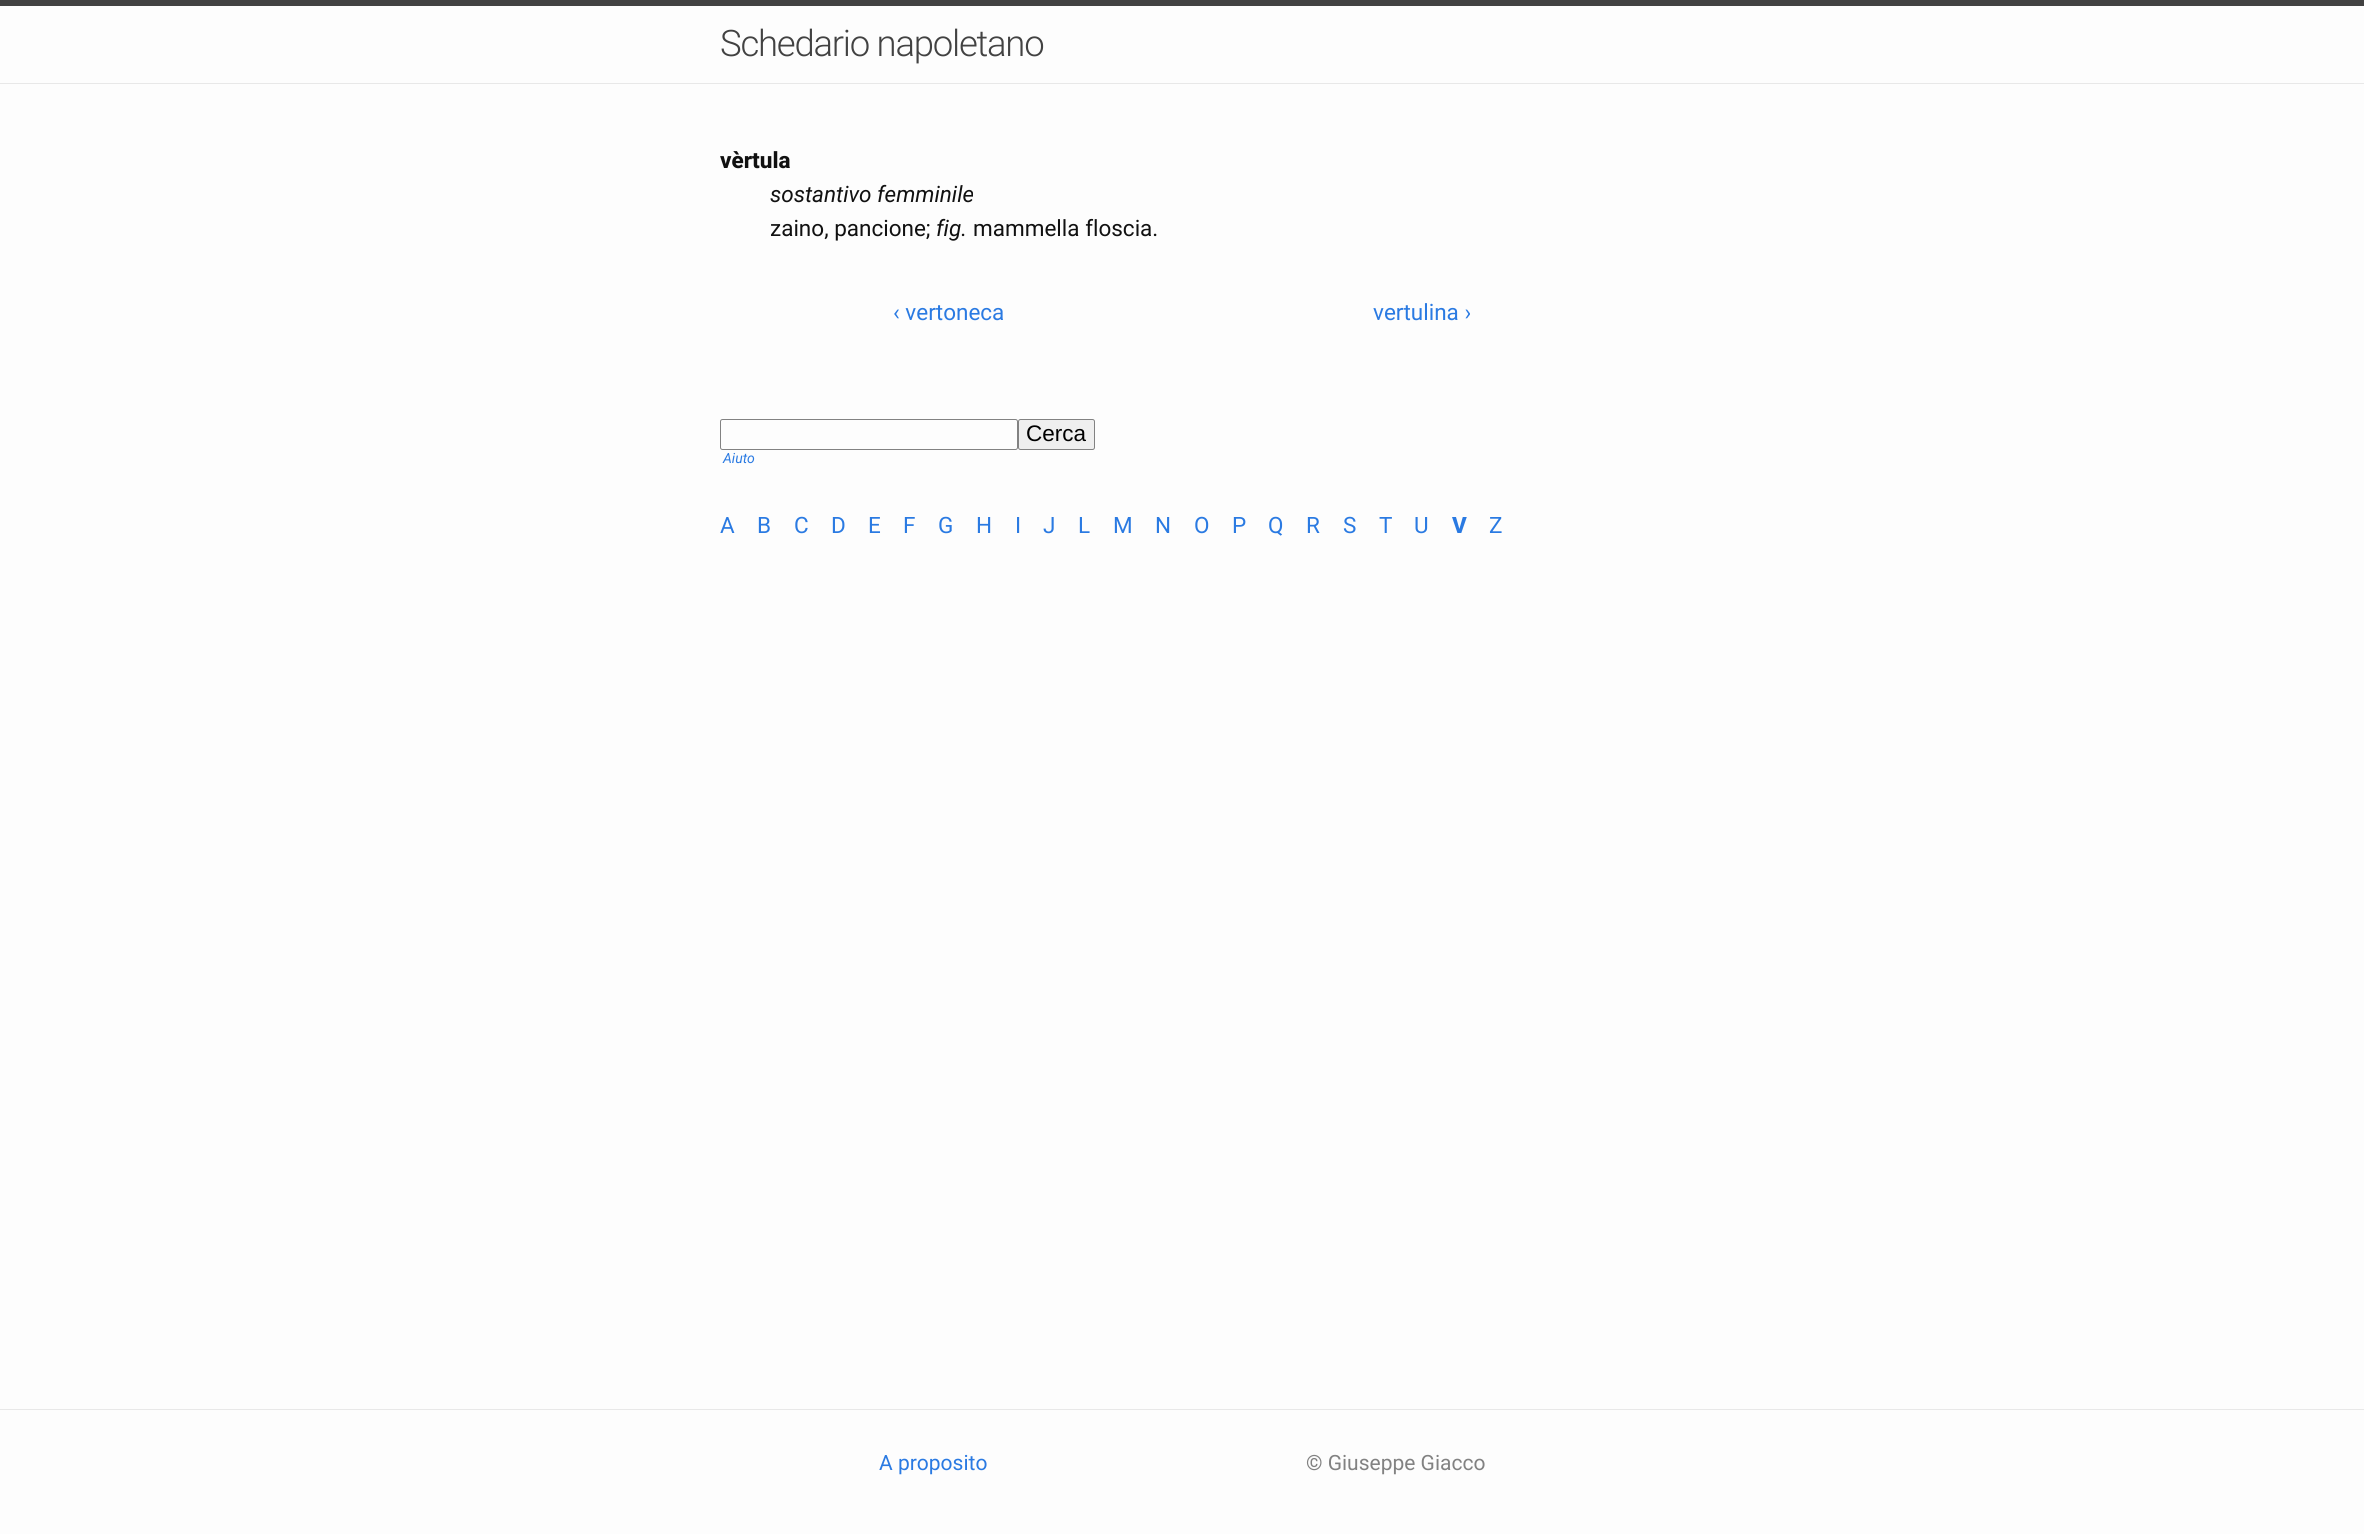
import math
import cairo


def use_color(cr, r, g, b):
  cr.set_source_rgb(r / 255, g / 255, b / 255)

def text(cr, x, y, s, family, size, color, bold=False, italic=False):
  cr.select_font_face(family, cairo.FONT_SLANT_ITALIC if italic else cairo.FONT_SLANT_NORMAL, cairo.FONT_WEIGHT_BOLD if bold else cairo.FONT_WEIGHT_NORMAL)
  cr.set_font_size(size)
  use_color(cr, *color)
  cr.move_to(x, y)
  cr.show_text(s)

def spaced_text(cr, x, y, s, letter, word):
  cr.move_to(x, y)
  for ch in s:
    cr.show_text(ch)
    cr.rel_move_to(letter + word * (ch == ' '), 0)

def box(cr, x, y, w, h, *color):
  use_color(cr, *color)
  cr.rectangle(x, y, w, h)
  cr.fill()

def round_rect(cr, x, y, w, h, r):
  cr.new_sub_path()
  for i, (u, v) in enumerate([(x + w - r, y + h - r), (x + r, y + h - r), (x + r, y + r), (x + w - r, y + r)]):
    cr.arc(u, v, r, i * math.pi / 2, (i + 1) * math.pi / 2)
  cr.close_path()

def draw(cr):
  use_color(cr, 253, 253, 253)
  cr.paint()
  box(cr, 0, 0, 2364, 6, 66, 66, 66)
  box(cr, 0, 83, 2364, 1, 232, 232, 232)
  round_rect(cr, 720.5, 419.5, 297, 30, 2)
  use_color(cr, 130, 130, 130)
  cr.set_line_width(1)
  cr.stroke()
  use_color(cr, 239, 239, 239)
  round_rect(cr, 1018.5, 419.5, 76, 30, 2)
  cr.fill_preserve()
  use_color(cr, 130, 130, 130)
  cr.stroke()
  box(cr, 0, 1409, 2364, 1, 232, 232, 232)
  cr.select_font_face("Roboto Light")
  cr.set_font_size(36.5)
  use_color(cr, 66, 66, 66)
  spaced_text(cr, 720, 56, "Schedario napoletano", -1.25, 0)
  text(cr, 720, 168, "vèrtula", "Roboto ExtraBold", 22.5, (17, 17, 17))
  text(cr, 770, 202, "sostantivo femminile", "Roboto", 22.5, (17, 17, 17), italic=True)
  text(cr, 770, 236, "zaino, pancione;", "Roboto", 22.5, (17, 17, 17))
  text(cr, 936, 236, "fig.", "Roboto", 22.5, (17, 17, 17), italic=True)
  text(cr, 973, 236, "mammella floscia.", "Roboto", 22.5, (17, 17, 17))
  text(cr, 893, 320, "‹ vertoneca", "Roboto", 22.5, (42, 122, 226))
  text(cr, 1373, 320, "vertulina ›", "Roboto", 22.5, (42, 122, 226))
  text(cr, 1026, 441, "Cerca", "Liberation Sans", 22.5, (0, 0, 0))
  text(cr, 723, 463, "Aiuto", "Roboto", 14, (42, 122, 226), italic=True)
  text(cr, 720, 533, "A", "Roboto", 22.5, (42, 122, 226))
  text(cr, 757, 533, "B", "Roboto", 22.5, (42, 122, 226))
  text(cr, 794, 533, "C", "Roboto", 22.5, (42, 122, 226))
  text(cr, 831, 533, "D", "Roboto", 22.5, (42, 122, 226))
  text(cr, 868, 533, "E", "Roboto", 22.5, (42, 122, 226))
  text(cr, 903, 533, "F", "Roboto", 22.5, (42, 122, 226))
  text(cr, 938, 533, "G", "Roboto", 22.5, (42, 122, 226))
  text(cr, 976, 533, "H", "Roboto", 22.5, (42, 122, 226))
  text(cr, 1015, 533, "I", "Roboto", 22.5, (42, 122, 226))
  text(cr, 1043, 533, "J", "Roboto", 22.5, (42, 122, 226))
  text(cr, 1078, 533, "L", "Roboto", 22.5, (42, 122, 226))
  text(cr, 1113, 533, "M", "Roboto", 22.5, (42, 122, 226))
  text(cr, 1155, 533, "N", "Roboto", 22.5, (42, 122, 226))
  text(cr, 1194, 533, "O", "Roboto", 22.5, (42, 122, 226))
  text(cr, 1232, 533, "P", "Roboto", 22.5, (42, 122, 226))
  text(cr, 1268, 533, "Q", "Roboto", 22.5, (42, 122, 226))
  text(cr, 1306, 533, "R", "Roboto", 22.5, (42, 122, 226))
  text(cr, 1343, 533, "S", "Roboto", 22.5, (42, 122, 226))
  text(cr, 1379, 533, "T", "Roboto", 22.5, (42, 122, 226))
  text(cr, 1414, 533, "U", "Roboto", 22.5, (42, 122, 226))
  text(cr, 1452, 533, "V", "Roboto ExtraBold", 22.5, (42, 122, 226))
  text(cr, 1489, 533, "Z", "Roboto", 22.5, (42, 122, 226))
  text(cr, 879, 1470, "A proposito", "Roboto", 21, (42, 122, 226))
  text(cr, 1306, 1470, "© Giuseppe Giacco", "Roboto", 21, (130, 130, 130))


surface = cairo.ImageSurface(cairo.FORMAT_RGB24, 2364, 1534)
cr = cairo.Context(surface)
options = cairo.FontOptions()
options.set_hint_metrics(cairo.HINT_METRICS_OFF)
options.set_hint_style(cairo.HINT_STYLE_NONE)
cr.set_font_options(options)
cr.set_miter_limit(4)
draw(cr)
surface.write_to_png("out.png")
